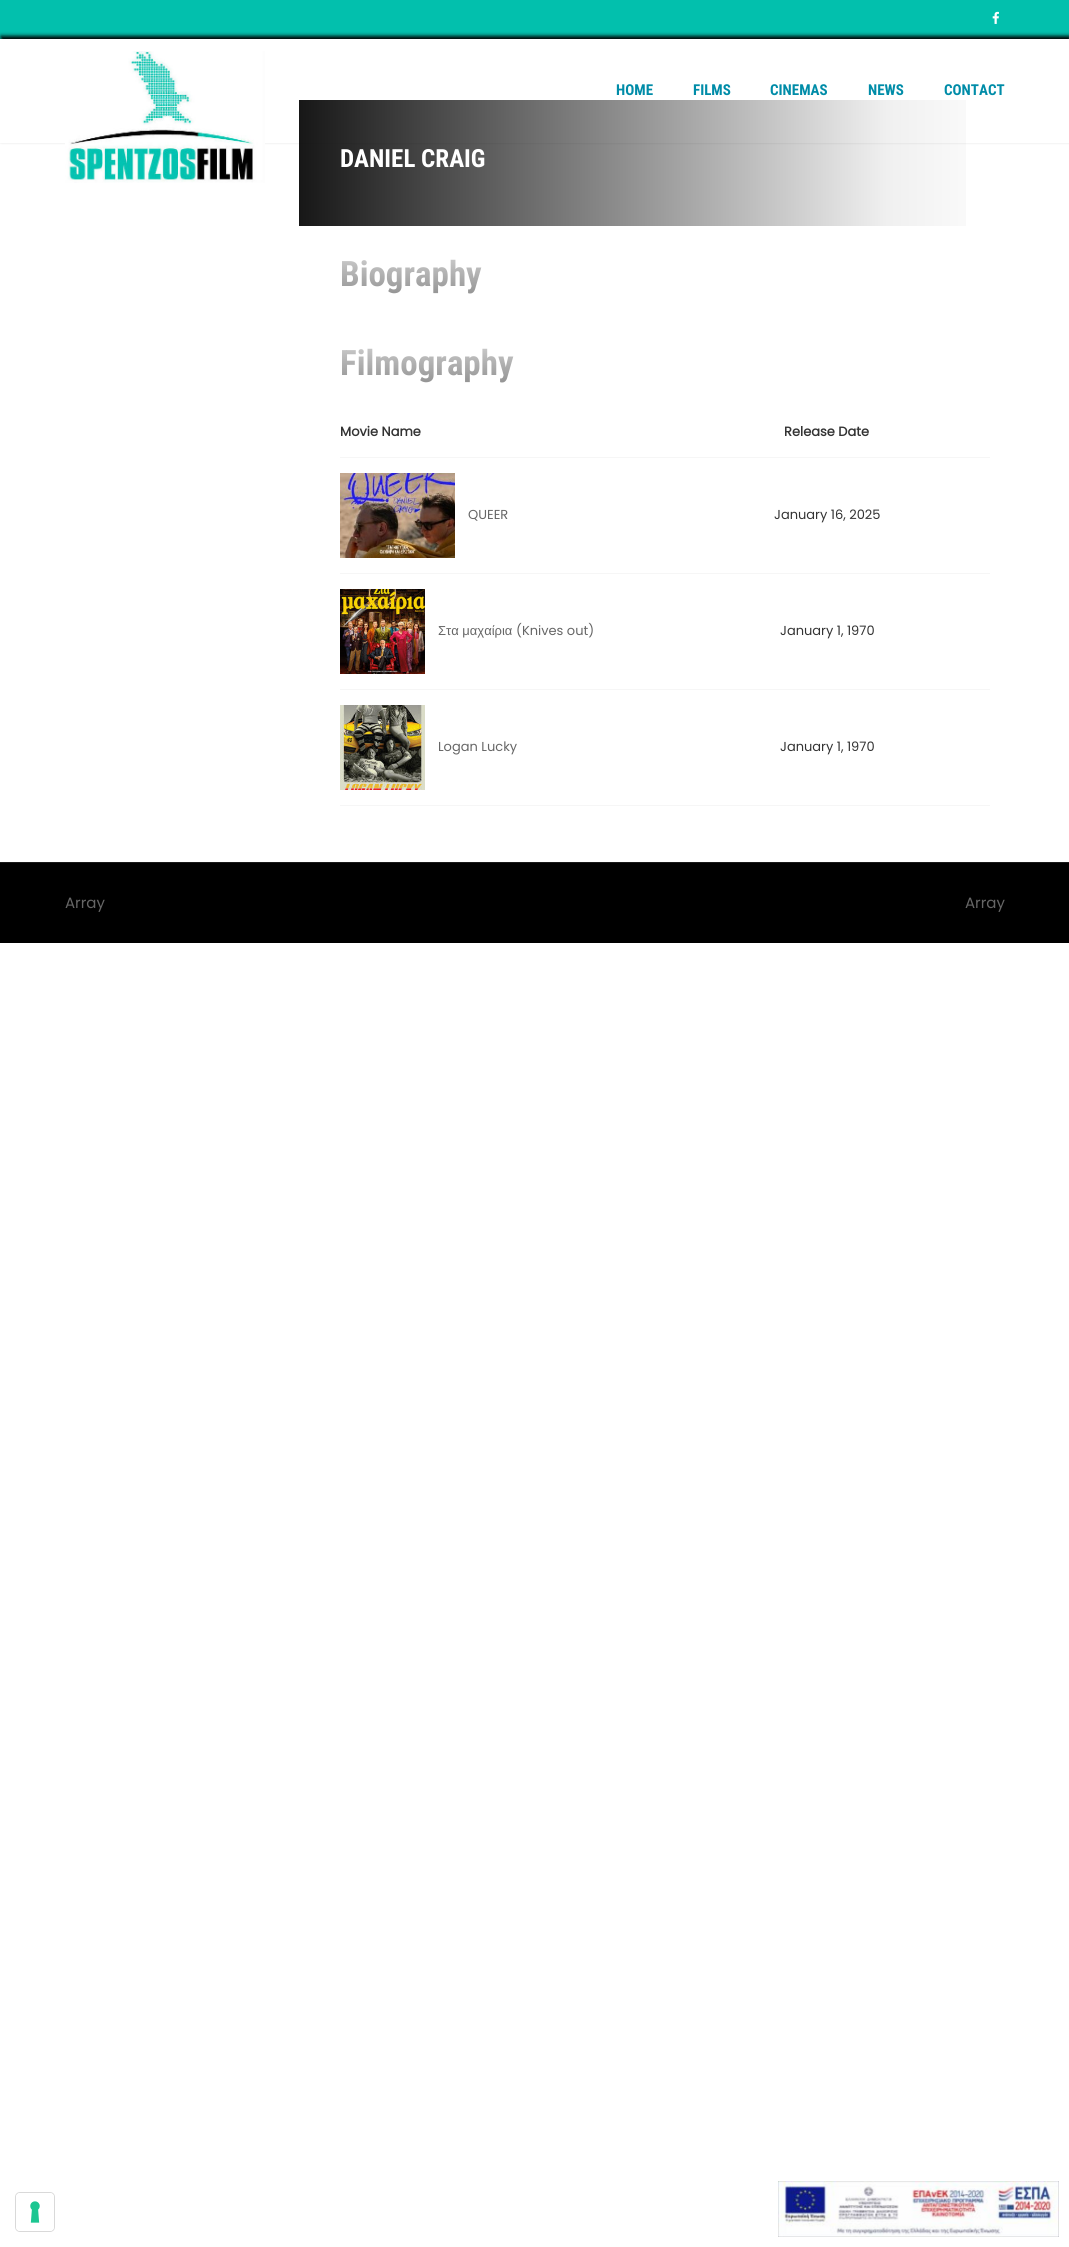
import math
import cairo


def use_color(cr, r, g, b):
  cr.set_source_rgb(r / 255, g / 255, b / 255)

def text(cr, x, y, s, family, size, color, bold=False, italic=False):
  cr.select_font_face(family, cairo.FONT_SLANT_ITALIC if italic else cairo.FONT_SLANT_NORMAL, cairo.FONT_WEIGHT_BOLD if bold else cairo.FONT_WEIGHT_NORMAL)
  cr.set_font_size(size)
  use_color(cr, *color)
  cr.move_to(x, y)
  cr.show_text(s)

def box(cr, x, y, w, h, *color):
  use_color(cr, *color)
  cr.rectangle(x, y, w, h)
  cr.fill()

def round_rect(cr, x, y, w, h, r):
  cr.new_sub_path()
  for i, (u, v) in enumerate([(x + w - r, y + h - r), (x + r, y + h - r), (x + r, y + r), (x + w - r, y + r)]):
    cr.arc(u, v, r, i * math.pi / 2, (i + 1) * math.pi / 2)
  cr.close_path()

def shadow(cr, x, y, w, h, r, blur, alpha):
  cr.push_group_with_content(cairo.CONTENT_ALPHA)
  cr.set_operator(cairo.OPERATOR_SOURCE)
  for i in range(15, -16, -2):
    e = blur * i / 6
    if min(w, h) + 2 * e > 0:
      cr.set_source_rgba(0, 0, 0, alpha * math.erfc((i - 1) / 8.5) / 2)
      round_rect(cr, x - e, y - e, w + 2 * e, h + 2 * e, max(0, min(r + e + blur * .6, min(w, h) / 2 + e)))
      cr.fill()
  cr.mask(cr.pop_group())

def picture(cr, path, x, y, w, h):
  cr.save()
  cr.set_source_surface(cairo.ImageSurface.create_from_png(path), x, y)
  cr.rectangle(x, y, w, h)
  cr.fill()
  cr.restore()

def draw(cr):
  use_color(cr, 255, 255, 255)
  cr.paint()
  box(cr, 0, 0, 1069, 39, 2, 192, 173)
  picture(cr, "img_01.png", 992, 11, 7, 13)
  cr.save()
  cr.set_fill_rule(cairo.FILL_RULE_EVEN_ODD)
  cr.new_path()
  cr.move_to(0, 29)
  cr.line_to(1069, 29)
  cr.line_to(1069, 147)
  cr.line_to(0, 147)
  cr.close_path()
  cr.move_to(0, 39)
  cr.line_to(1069, 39)
  cr.line_to(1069, 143)
  cr.line_to(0, 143)
  cr.close_path()
  cr.clip()
  use_color(cr, 0, 0, 0)
  shadow(cr, 1, 36, 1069, 104, 0, 2, 1)
  cr.restore()
  picture(cr, "img_02.png", 65, 51, 200, 132)
  gradient = cairo.LinearGradient(299, 163, 990, 163)
  gradient.add_color_stop_rgba(0, 0, 0, 0, 0.91)
  gradient.add_color_stop_rgba(0.85, 0, 0, 0, 0.06)
  gradient.add_color_stop_rgba(1, 0, 0, 0, 0.01)
  cr.set_source(gradient)
  cr.rectangle(299, 100, 667, 126)
  cr.fill()
  box(cr, 340, 457, 650, 1, 246, 246, 246)
  box(cr, 340, 573, 650, 1, 246, 246, 246)
  picture(cr, "img_03.png", 340, 473, 115, 85)
  box(cr, 340, 689, 650, 1, 246, 246, 246)
  picture(cr, "img_04.png", 340, 589, 85, 85)
  box(cr, 340, 805, 650, 1, 246, 246, 246)
  picture(cr, "img_05.png", 340, 705, 85, 85)
  box(cr, 0, 863, 1069, 80, 0, 0, 0)
  box(cr, 0, 862, 1069, 1, 26, 26, 26)
  round_rect(cr, 15.5, 2192.5, 39, 39, 4.5)
  use_color(cr, 217, 217, 217)
  cr.set_line_width(1)
  cr.stroke()
  use_color(cr, 255, 255, 255)
  round_rect(cr, 16, 2193, 38, 38, 4)
  cr.fill()
  picture(cr, "img_06.png", 30, 2201, 10, 22)
  picture(cr, "img_07.png", 778, 2181, 281, 56)
  text(cr, 616, 95, "HOME", "Roboto Condensed", 15, (0, 140, 168), bold=True)
  text(cr, 693, 95, "FILMS", "Roboto Condensed", 15, (0, 140, 168), bold=True)
  text(cr, 770, 95, "CINEMAS", "Roboto Condensed", 15, (0, 140, 168), bold=True)
  text(cr, 868, 95, "NEWS", "Roboto Condensed", 15, (0, 140, 168), bold=True)
  text(cr, 944, 95, "CONTACT", "Roboto Condensed", 15, (0, 140, 168), bold=True)
  text(cr, 340, 167, "DANIEL CRAIG", "Roboto Condensed", 25, (255, 255, 255), bold=True)
  cr.set_font_size(35)
  gradient = cairo.LinearGradient(410, 256, 410, 300)
  gradient.add_color_stop_rgba(0, 0.8, 0.8, 0.8, 1)
  gradient.add_color_stop_rgba(1, 0.549, 0.549, 0.549, 1)
  cr.set_source(gradient)
  cr.move_to(340, 286)
  cr.show_text("Biography")
  gradient = cairo.LinearGradient(426, 345, 426, 388)
  gradient.add_color_stop_rgba(0, 0.8, 0.8, 0.8, 1)
  gradient.add_color_stop_rgba(1, 0.549, 0.549, 0.549, 1)
  cr.set_source(gradient)
  cr.move_to(340, 375)
  cr.show_text("Filmography")
  text(cr, 340, 436, "Movie Name", "Poppins", 13, (51, 51, 51), bold=True)
  text(cr, 784, 436, "Release Date", "Poppins", 13, (51, 51, 51), bold=True)
  text(cr, 468, 519, "QUEER", "Poppins", 13, (102, 102, 102))
  text(cr, 774, 519, "January 16, 2025", "Poppins", 13, (51, 51, 51))
  text(cr, 438, 635, "Στα μαχαίρια", "Liberation Sans", 13, (102, 102, 102))
  text(cr, 516, 635, "(Knives out)", "Poppins", 13, (102, 102, 102))
  text(cr, 780, 635, "January 1, 1970", "Poppins", 13, (51, 51, 51))
  text(cr, 438, 751, "Logan Lucky", "Poppins", 13, (102, 102, 102))
  text(cr, 780, 751, "January 1, 1970", "Poppins", 13, (51, 51, 51))
  text(cr, 65, 908, "Array", "Poppins", 15, (102, 102, 102))
  text(cr, 965, 908, "Array", "Poppins", 15, (102, 102, 102))


surface = cairo.ImageSurface(cairo.FORMAT_RGB24, 1069, 2247)
cr = cairo.Context(surface)
options = cairo.FontOptions()
options.set_hint_metrics(cairo.HINT_METRICS_OFF)
options.set_hint_style(cairo.HINT_STYLE_NONE)
cr.set_font_options(options)
cr.set_miter_limit(4)
draw(cr)
surface.write_to_png("out.png")
